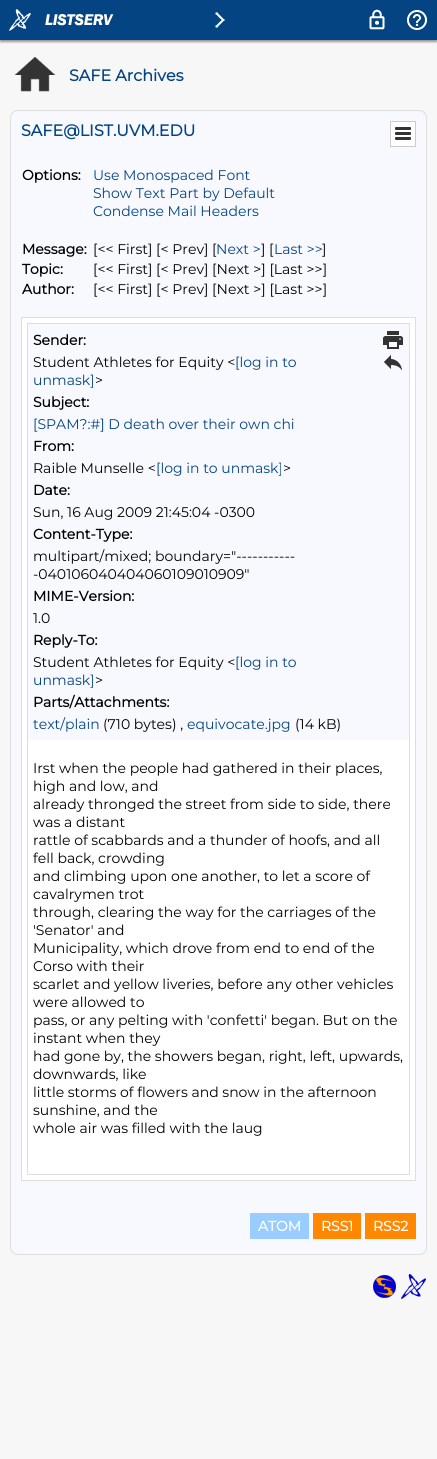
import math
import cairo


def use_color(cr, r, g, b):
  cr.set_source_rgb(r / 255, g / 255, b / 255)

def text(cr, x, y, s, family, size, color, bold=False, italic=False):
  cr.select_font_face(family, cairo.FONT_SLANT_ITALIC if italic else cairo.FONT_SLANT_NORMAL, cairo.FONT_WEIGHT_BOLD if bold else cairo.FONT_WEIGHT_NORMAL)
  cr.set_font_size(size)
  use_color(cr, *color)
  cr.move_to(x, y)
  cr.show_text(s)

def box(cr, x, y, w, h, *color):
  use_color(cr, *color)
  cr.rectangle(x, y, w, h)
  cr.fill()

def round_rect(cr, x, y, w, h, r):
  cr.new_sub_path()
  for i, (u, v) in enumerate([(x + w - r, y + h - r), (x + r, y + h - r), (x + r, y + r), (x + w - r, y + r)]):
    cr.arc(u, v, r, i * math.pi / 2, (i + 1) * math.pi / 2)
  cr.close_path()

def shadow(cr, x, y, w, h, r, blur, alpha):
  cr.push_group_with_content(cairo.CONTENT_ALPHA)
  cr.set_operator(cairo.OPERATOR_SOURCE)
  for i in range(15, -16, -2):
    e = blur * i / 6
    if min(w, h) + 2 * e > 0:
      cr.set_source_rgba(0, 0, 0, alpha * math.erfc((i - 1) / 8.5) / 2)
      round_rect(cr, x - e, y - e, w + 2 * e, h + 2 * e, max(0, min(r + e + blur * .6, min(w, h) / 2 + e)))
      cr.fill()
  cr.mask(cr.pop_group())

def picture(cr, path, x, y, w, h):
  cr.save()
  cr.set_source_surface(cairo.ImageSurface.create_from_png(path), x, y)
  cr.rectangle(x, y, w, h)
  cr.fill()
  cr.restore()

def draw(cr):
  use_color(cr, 247, 247, 247)
  cr.paint()
  use_color(cr, 153, 153, 153)
  shadow(cr, 0, 2, 437, 40, 0, 1, 1)
  box(cr, 0, 0, 437, 40, 5, 68, 131)
  picture(cr, "img_01.png", 9, 9, 22, 22)
  picture(cr, "img_02.png", 45, 14, 69, 12)
  picture(cr, "img_03.png", 215, 12, 10, 16)
  picture(cr, "img_04.png", 369, 9, 16, 21)
  picture(cr, "img_05.png", 407, 10, 20, 20)
  picture(cr, "img_06.png", 14, 57, 42, 35)
  use_color(cr, 247, 249, 254)
  round_rect(cr, 10.5, 110.5, 416, 1144, 7.5)
  cr.fill_preserve()
  use_color(cr, 222, 222, 222)
  cr.set_line_width(1)
  cr.stroke()
  use_color(cr, 255, 255, 255)
  cr.rectangle(390.5, 121.5, 25, 25)
  cr.fill_preserve()
  use_color(cr, 204, 204, 204)
  cr.stroke()
  picture(cr, "img_07.png", 395, 127, 16, 13)
  cr.rectangle(21.5, 317.5, 394, 863)
  use_color(cr, 222, 222, 222)
  cr.stroke()
  box(cr, 22, 318, 393, 862, 255, 255, 255)
  cr.rectangle(27.5, 323.5, 382, 851)
  use_color(cr, 222, 222, 222)
  cr.stroke()
  box(cr, 28, 324, 381, 416, 247, 249, 254)
  picture(cr, "img_08.png", 383, 331, 20, 18)
  picture(cr, "img_09.png", 384, 355, 18, 15)
  box(cr, 250, 1213, 59, 26, 153, 204, 255)
  box(cr, 313, 1213, 48, 26, 255, 136, 0)
  box(cr, 365, 1213, 51, 26, 255, 136, 0)
  picture(cr, "img_10.png", 373, 1275, 23, 23)
  picture(cr, "img_11.png", 401, 1274, 25, 25)
  text(cr, 69, 81, "SAFE Archives", "Montserrat", 16, (5, 68, 131), bold=True)
  text(cr, 21, 136, "SAFE@LIST.UVM.EDU", "Montserrat", 16, (5, 68, 131), bold=True)
  text(cr, 22, 180, "Options:", "Montserrat", 14, (0, 0, 0), bold=True)
  text(cr, 93, 180, "Use Monospaced Font", "Montserrat Thin", 14, (5, 68, 131))
  text(cr, 93, 198, "Show Text Part by Default", "Montserrat Thin", 14, (5, 68, 131))
  text(cr, 93, 216, "Condense Mail Headers", "Montserrat Thin", 14, (5, 68, 131))
  text(cr, 22, 254, "Message:", "Montserrat", 14, (0, 0, 0), bold=True)
  text(cr, 93, 254, "[<< First] [< Prev] [", "Montserrat Thin", 14, (0, 0, 0))
  text(cr, 216, 254, "Next >", "Montserrat Thin", 14, (5, 68, 131))
  text(cr, 261, 254, "] [", "Montserrat Thin", 14, (0, 0, 0))
  text(cr, 274, 254, "Last >>", "Montserrat Thin", 14, (5, 68, 131))
  text(cr, 322, 254, "]", "Montserrat Thin", 14, (0, 0, 0))
  text(cr, 22, 274, "Topic:", "Montserrat", 14, (0, 0, 0), bold=True)
  text(cr, 93, 274, "[<< First] [< Prev] [Next >] [Last >>]", "Montserrat Thin", 14, (0, 0, 0))
  text(cr, 22, 294, "Author:", "Montserrat", 14, (0, 0, 0), bold=True)
  text(cr, 93, 294, "[<< First] [< Prev] [Next >] [Last >>]", "Montserrat Thin", 14, (0, 0, 0))
  text(cr, 33, 345, "Sender:", "Montserrat", 14, (0, 0, 0), bold=True)
  text(cr, 33, 367, "Student Athletes for Equity <", "Montserrat Thin", 14, (0, 0, 0))
  text(cr, 235, 367, "[log in to", "Montserrat Thin", 14, (5, 68, 131))
  text(cr, 33, 385, "unmask]", "Montserrat Thin", 14, (5, 68, 131))
  text(cr, 95, 385, ">", "Montserrat Thin", 14, (0, 0, 0))
  text(cr, 33, 407, "Subject:", "Montserrat", 14, (0, 0, 0), bold=True)
  text(cr, 33, 429, "[SPAM?:#] D death over their own chi", "Montserrat Thin", 14, (5, 68, 131))
  text(cr, 33, 451, "From:", "Montserrat", 14, (0, 0, 0), bold=True)
  text(cr, 33, 473, "Raible Munselle <", "Montserrat Thin", 14, (0, 0, 0))
  text(cr, 156, 473, "[log in to unmask]", "Montserrat Thin", 14, (5, 68, 131))
  text(cr, 283, 473, ">", "Montserrat Thin", 14, (0, 0, 0))
  text(cr, 33, 495, "Date:", "Montserrat", 14, (0, 0, 0), bold=True)
  text(cr, 33, 517, "Sun, 16 Aug 2009 21:45:04 -0300", "Montserrat Thin", 14, (0, 0, 0))
  text(cr, 33, 539, "Content-Type:", "Montserrat", 14, (0, 0, 0), bold=True)
  text(cr, 33, 561, "multipart/mixed; boundary=\"-----------", "Montserrat Thin", 14, (0, 0, 0))
  text(cr, 33, 579, "-040106040404060109010909\"", "Montserrat Thin", 14, (0, 0, 0))
  text(cr, 33, 601, "MIME-Version:", "Montserrat", 14, (0, 0, 0), bold=True)
  text(cr, 33, 623, "1.0", "Montserrat Thin", 14, (0, 0, 0))
  text(cr, 33, 645, "Reply-To:", "Montserrat", 14, (0, 0, 0), bold=True)
  text(cr, 33, 667, "Student Athletes for Equity <", "Montserrat Thin", 14, (0, 0, 0))
  text(cr, 235, 667, "[log in to", "Montserrat Thin", 14, (5, 68, 131))
  text(cr, 33, 685, "unmask]", "Montserrat Thin", 14, (5, 68, 131))
  text(cr, 95, 685, ">", "Montserrat Thin", 14, (0, 0, 0))
  text(cr, 33, 707, "Parts/Attachments:", "Montserrat", 14, (0, 0, 0), bold=True)
  text(cr, 33, 729, "text/plain", "Montserrat Thin", 14, (5, 68, 131))
  text(cr, 103, 729, "(710 bytes) ,", "Montserrat Thin", 14, (0, 0, 0))
  text(cr, 187, 729, "equivocate.jpg", "Montserrat Thin", 14, (5, 68, 131))
  text(cr, 295, 729, "(14 kB)", "Montserrat Thin", 14, (0, 0, 0))
  text(cr, 33, 773, "Irst when the people had gathered in their places,", "Montserrat Thin", 14, (0, 0, 0))
  text(cr, 33, 791, "high and low, and", "Montserrat Thin", 14, (0, 0, 0))
  text(cr, 33, 809, "already thronged the street from side to side, there", "Montserrat Thin", 14, (0, 0, 0))
  text(cr, 33, 827, "was a distant", "Montserrat Thin", 14, (0, 0, 0))
  text(cr, 33, 845, "rattle of scabbards and a thunder of hoofs, and all", "Montserrat Thin", 14, (0, 0, 0))
  text(cr, 33, 863, "fell back, crowding", "Montserrat Thin", 14, (0, 0, 0))
  text(cr, 33, 881, "and climbing upon one another, to let a score of", "Montserrat Thin", 14, (0, 0, 0))
  text(cr, 33, 899, "cavalrymen trot", "Montserrat Thin", 14, (0, 0, 0))
  text(cr, 33, 917, "through, clearing the way for the carriages of the", "Montserrat Thin", 14, (0, 0, 0))
  text(cr, 33, 935, "'Senator' and", "Montserrat Thin", 14, (0, 0, 0))
  text(cr, 33, 953, "Municipality, which drove from end to end of the", "Montserrat Thin", 14, (0, 0, 0))
  text(cr, 33, 971, "Corso with their", "Montserrat Thin", 14, (0, 0, 0))
  text(cr, 33, 989, "scarlet and yellow liveries, before any other vehicles", "Montserrat Thin", 14, (0, 0, 0))
  text(cr, 33, 1007, "were allowed to", "Montserrat Thin", 14, (0, 0, 0))
  text(cr, 33, 1025, "pass, or any pelting with 'confetti' began. But on the", "Montserrat Thin", 14, (0, 0, 0))
  text(cr, 33, 1043, "instant when they", "Montserrat Thin", 14, (0, 0, 0))
  text(cr, 33, 1061, "had gone by, the showers began, right, left, upwards,", "Montserrat Thin", 14, (0, 0, 0))
  text(cr, 33, 1079, "downwards, like", "Montserrat Thin", 14, (0, 0, 0))
  text(cr, 33, 1097, "little storms of flowers and snow in the afternoon", "Montserrat Thin", 14, (0, 0, 0))
  text(cr, 33, 1115, "sunshine, and the", "Montserrat Thin", 14, (0, 0, 0))
  text(cr, 33, 1133, "whole air was filled with the laug", "Montserrat Thin", 14, (0, 0, 0))
  text(cr, 258, 1231, "ATOM", "Montserrat", 14, (255, 255, 255), bold=True)
  text(cr, 321, 1231, "RSS1", "Montserrat", 14, (255, 255, 255), bold=True)
  text(cr, 373, 1231, "RSS2", "Montserrat", 14, (255, 255, 255), bold=True)


surface = cairo.ImageSurface(cairo.FORMAT_RGB24, 437, 1459)
cr = cairo.Context(surface)
options = cairo.FontOptions()
options.set_hint_metrics(cairo.HINT_METRICS_OFF)
options.set_hint_style(cairo.HINT_STYLE_NONE)
cr.set_font_options(options)
cr.set_miter_limit(4)
draw(cr)
surface.write_to_png("out.png")
